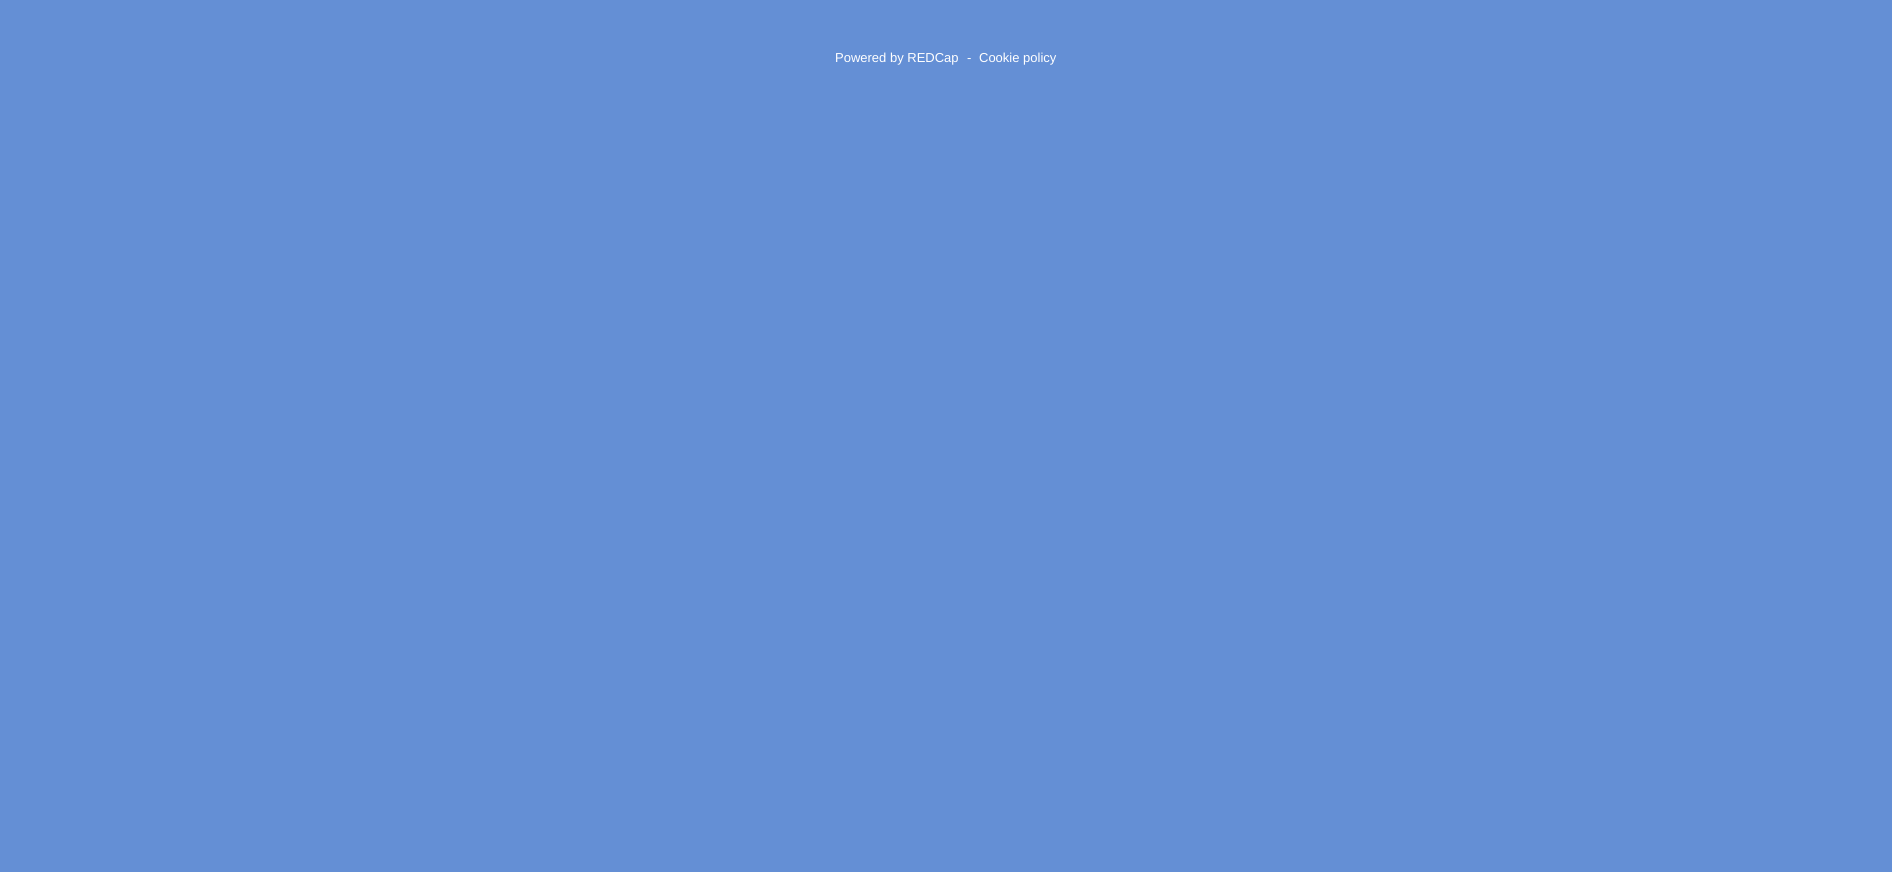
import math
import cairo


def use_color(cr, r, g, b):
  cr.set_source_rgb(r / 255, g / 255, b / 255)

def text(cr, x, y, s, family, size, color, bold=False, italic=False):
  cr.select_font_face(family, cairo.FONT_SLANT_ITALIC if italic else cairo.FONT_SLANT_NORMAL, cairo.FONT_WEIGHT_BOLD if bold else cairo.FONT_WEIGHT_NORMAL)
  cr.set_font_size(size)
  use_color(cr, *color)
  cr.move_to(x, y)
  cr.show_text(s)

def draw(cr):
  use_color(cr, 100, 143, 213)
  cr.paint()
  text(cr, 835, 62, "Powered by REDCap", "Liberation Sans", 13, (255, 255, 255))
  text(cr, 967, 62, "-", "Liberation Sans", 13, (255, 255, 255))
  text(cr, 979, 62, "Cookie policy", "Liberation Sans", 13, (255, 255, 255))


surface = cairo.ImageSurface(cairo.FORMAT_RGB24, 1892, 872)
cr = cairo.Context(surface)
options = cairo.FontOptions()
options.set_hint_metrics(cairo.HINT_METRICS_OFF)
options.set_hint_style(cairo.HINT_STYLE_NONE)
cr.set_font_options(options)
cr.set_miter_limit(4)
draw(cr)
surface.write_to_png("out.png")
